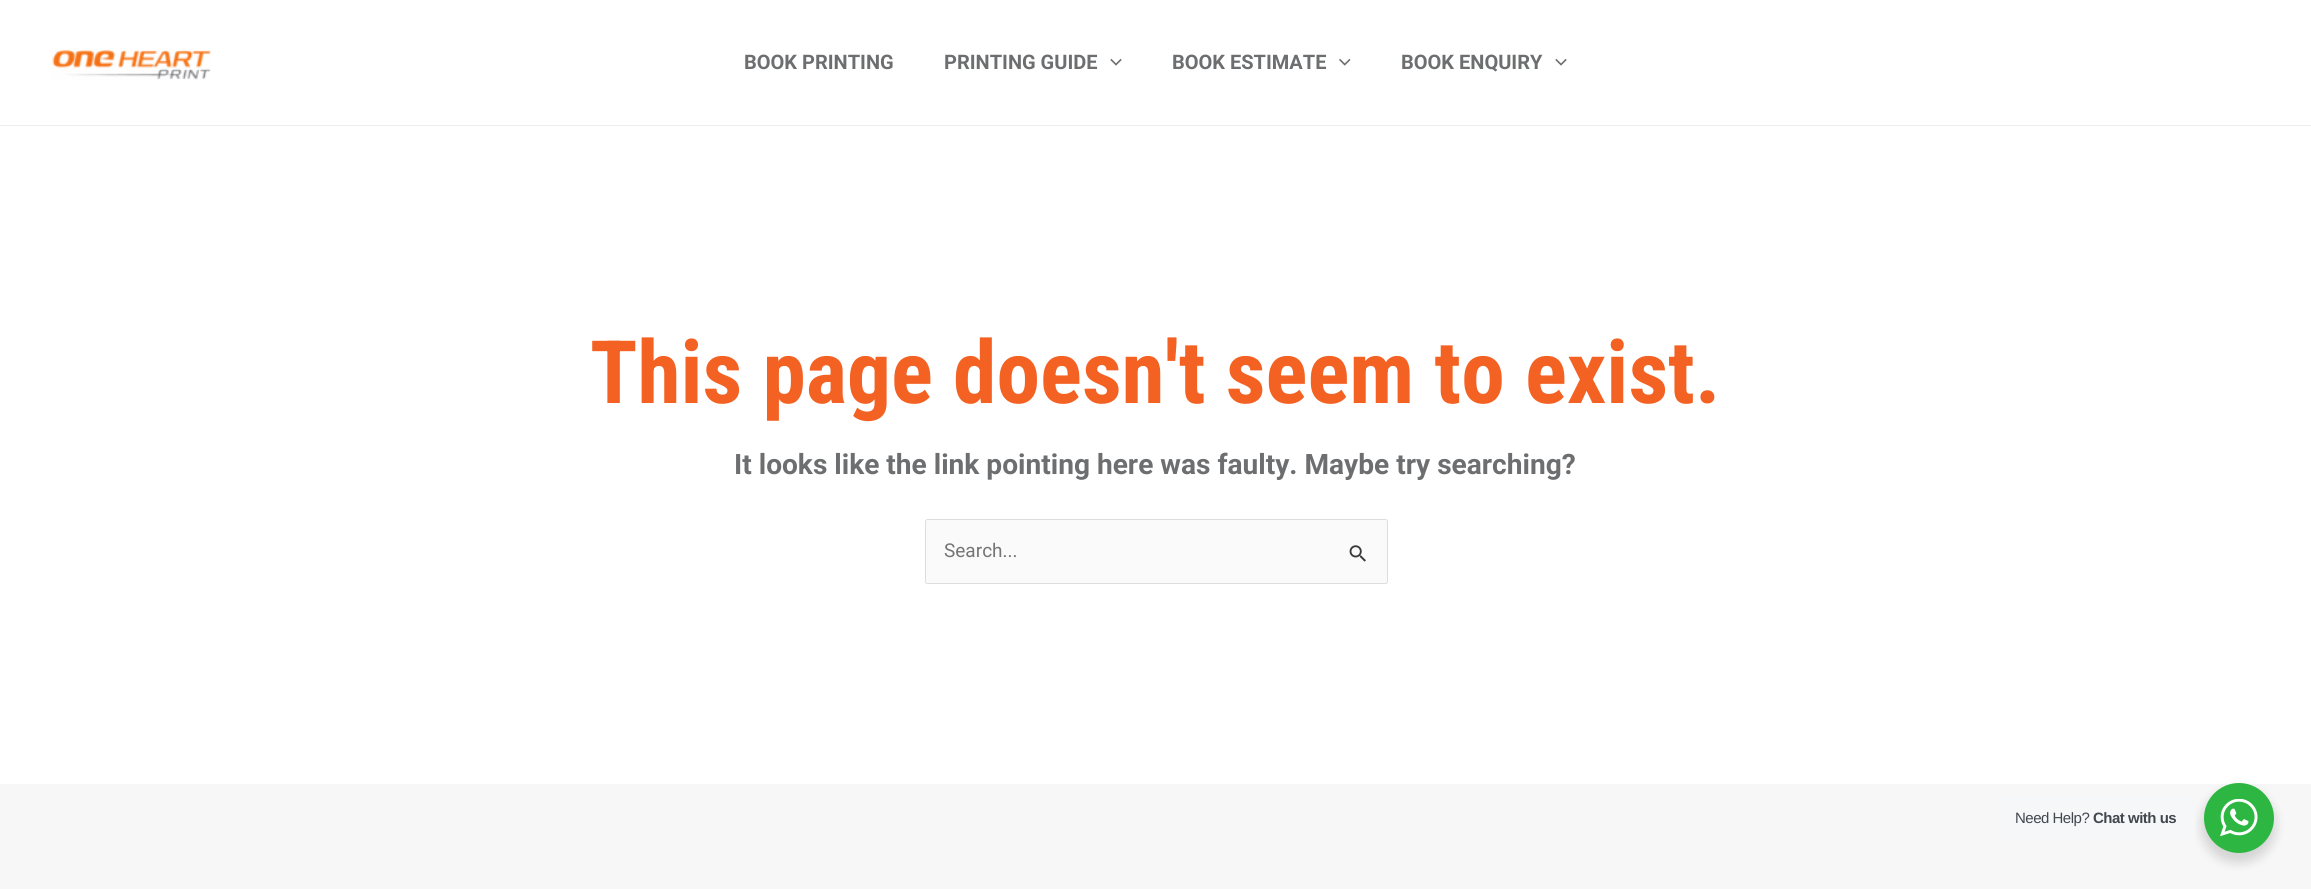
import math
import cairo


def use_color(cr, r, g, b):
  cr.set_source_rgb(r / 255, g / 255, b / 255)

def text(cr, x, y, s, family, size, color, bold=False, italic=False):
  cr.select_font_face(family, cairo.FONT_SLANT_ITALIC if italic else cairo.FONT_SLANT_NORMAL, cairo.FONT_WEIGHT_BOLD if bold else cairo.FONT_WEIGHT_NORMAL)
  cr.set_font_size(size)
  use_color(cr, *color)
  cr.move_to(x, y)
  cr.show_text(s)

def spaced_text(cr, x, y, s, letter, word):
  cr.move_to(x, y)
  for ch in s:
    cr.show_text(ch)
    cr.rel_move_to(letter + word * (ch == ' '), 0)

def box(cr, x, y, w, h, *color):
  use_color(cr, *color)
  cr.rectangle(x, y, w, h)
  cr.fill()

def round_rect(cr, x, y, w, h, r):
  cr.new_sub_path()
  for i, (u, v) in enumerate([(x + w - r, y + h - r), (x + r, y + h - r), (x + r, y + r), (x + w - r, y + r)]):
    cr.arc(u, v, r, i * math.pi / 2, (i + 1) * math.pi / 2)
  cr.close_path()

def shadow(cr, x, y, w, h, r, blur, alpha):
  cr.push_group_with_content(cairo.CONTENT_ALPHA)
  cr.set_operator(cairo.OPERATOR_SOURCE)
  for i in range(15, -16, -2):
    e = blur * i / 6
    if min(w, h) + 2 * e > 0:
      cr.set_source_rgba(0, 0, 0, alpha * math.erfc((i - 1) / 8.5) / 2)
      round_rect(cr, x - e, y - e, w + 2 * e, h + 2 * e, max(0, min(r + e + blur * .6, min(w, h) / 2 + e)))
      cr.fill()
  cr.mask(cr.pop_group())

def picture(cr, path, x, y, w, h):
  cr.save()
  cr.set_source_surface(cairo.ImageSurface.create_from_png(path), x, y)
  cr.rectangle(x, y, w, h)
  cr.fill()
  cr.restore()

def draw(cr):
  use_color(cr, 255, 255, 255)
  cr.paint()
  box(cr, 0, 125, 2311, 1, 237, 237, 237)
  picture(cr, "img_01.png", 52, 49, 159, 31)
  picture(cr, "img_02.png", 1110, 58, 12, 8)
  picture(cr, "img_03.png", 1339, 58, 12, 8)
  picture(cr, "img_02.png", 1555, 58, 12, 8)
  use_color(cr, 250, 250, 250)
  round_rect(cr, 925.5, 519.5, 462, 64, 2)
  cr.fill_preserve()
  use_color(cr, 221, 221, 221)
  cr.set_line_width(1)
  cr.stroke()
  picture(cr, "img_04.png", 1349, 545, 17, 17)
  box(cr, 0, 784, 2311, 105, 247, 247, 247)
  use_color(cr, 0, 0, 0)
  shadow(cr, 2201, 788, 75, 75, 37.5, 5, 0.14)
  use_color(cr, 245, 247, 249)
  round_rect(cr, 2000, 796, 195, 43, 5)
  cr.fill()
  use_color(cr, 45, 183, 66)
  cr.arc(2239, 818, 35, 0, 2 * math.pi)
  cr.fill()
  picture(cr, "img_05.png", 2220, 799, 38, 37)
  text(cr, 744, 69, "BOOK PRINTING", "Roboto", 20, (109, 110, 112), bold=True)
  text(cr, 944, 69, "PRINTING GUIDE", "Roboto", 20, (109, 110, 112), bold=True)
  text(cr, 1172, 69, "BOOK ESTIMATE", "Roboto", 20, (109, 110, 112), bold=True)
  text(cr, 1401, 69, "BOOK ENQUIRY", "Roboto", 20, (109, 110, 112), bold=True)
  text(cr, 590, 403, "This page doesn't seem to exist.", "Roboto Condensed", 87.5, (243, 97, 35), bold=True)
  text(cr, 734, 474, "It looks like the link pointing here was faulty. Maybe try searching?", "Roboto", 28.1, (109, 110, 112), bold=True)
  text(cr, 944, 557, "Search...", "Roboto", 19, (117, 117, 117))
  cr.select_font_face("Liberation Sans")
  cr.set_font_size(15)
  use_color(cr, 67, 71, 78)
  spaced_text(cr, 2015, 823, "Need Help?", -0.5, 0)
  cr.select_font_face("Liberation Sans", cairo.FONT_SLANT_NORMAL, cairo.FONT_WEIGHT_BOLD)
  spaced_text(cr, 2093, 823, "Chat with us", -0.5, 0)


surface = cairo.ImageSurface(cairo.FORMAT_RGB24, 2311, 889)
cr = cairo.Context(surface)
options = cairo.FontOptions()
options.set_hint_metrics(cairo.HINT_METRICS_OFF)
options.set_hint_style(cairo.HINT_STYLE_NONE)
cr.set_font_options(options)
cr.set_miter_limit(4)
draw(cr)
surface.write_to_png("out.png")
